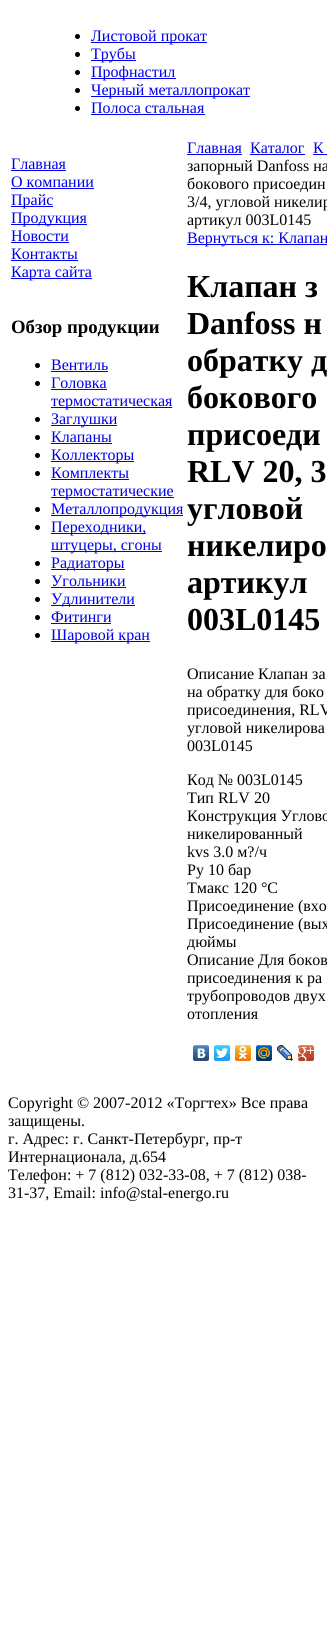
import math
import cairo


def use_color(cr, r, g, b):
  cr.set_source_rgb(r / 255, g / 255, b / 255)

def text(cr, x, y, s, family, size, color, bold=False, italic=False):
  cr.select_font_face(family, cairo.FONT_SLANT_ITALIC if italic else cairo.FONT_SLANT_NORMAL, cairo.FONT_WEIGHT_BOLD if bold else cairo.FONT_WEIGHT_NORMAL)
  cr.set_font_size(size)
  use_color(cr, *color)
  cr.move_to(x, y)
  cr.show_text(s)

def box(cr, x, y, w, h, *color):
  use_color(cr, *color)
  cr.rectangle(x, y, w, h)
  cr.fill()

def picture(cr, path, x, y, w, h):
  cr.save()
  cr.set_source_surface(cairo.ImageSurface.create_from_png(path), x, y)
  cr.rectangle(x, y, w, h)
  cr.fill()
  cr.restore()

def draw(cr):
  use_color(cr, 255, 255, 255)
  cr.paint()
  use_color(cr, 0, 0, 0)
  cr.arc(77.5, 36.5, 2.5, 0, 2 * math.pi)
  cr.fill()
  box(cr, 91, 42, 116, 1, 0, 0, 238)
  use_color(cr, 0, 0, 0)
  cr.arc(77.5, 54.5, 2.5, 0, 2 * math.pi)
  cr.fill()
  box(cr, 91, 60, 45, 1, 0, 0, 238)
  use_color(cr, 0, 0, 0)
  cr.arc(77.5, 72.5, 2.5, 0, 2 * math.pi)
  cr.fill()
  box(cr, 91, 78, 85, 1, 0, 0, 238)
  use_color(cr, 0, 0, 0)
  cr.arc(77.5, 90.5, 2.5, 0, 2 * math.pi)
  cr.fill()
  box(cr, 91, 96, 159, 1, 0, 0, 238)
  use_color(cr, 0, 0, 0)
  cr.arc(77.5, 108.5, 2.5, 0, 2 * math.pi)
  cr.fill()
  box(cr, 91, 114, 114, 1, 0, 0, 238)
  box(cr, 11, 170, 55, 1, 0, 0, 238)
  box(cr, 11, 188, 83, 1, 0, 0, 238)
  box(cr, 11, 206, 42, 1, 0, 0, 238)
  box(cr, 11, 224, 76, 1, 0, 0, 238)
  box(cr, 11, 242, 58, 1, 0, 0, 238)
  box(cr, 11, 260, 67, 1, 0, 0, 238)
  box(cr, 11, 278, 81, 1, 0, 0, 238)
  use_color(cr, 0, 0, 0)
  cr.arc(37.5, 365.5, 2.5, 0, 2 * math.pi)
  cr.fill()
  box(cr, 51, 371, 57, 1, 0, 0, 238)
  use_color(cr, 0, 0, 0)
  cr.arc(37.5, 383.5, 2.5, 0, 2 * math.pi)
  cr.fill()
  box(cr, 51, 389, 56, 1, 0, 0, 238)
  box(cr, 51, 407, 121, 1, 0, 0, 238)
  use_color(cr, 0, 0, 0)
  cr.arc(37.5, 419.5, 2.5, 0, 2 * math.pi)
  cr.fill()
  box(cr, 51, 425, 66, 1, 0, 0, 238)
  use_color(cr, 0, 0, 0)
  cr.arc(37.5, 437.5, 2.5, 0, 2 * math.pi)
  cr.fill()
  box(cr, 51, 443, 61, 1, 0, 0, 238)
  use_color(cr, 0, 0, 0)
  cr.arc(37.5, 455.5, 2.5, 0, 2 * math.pi)
  cr.fill()
  box(cr, 51, 461, 83, 1, 0, 0, 238)
  use_color(cr, 0, 0, 0)
  cr.arc(37.5, 473.5, 2.5, 0, 2 * math.pi)
  cr.fill()
  box(cr, 51, 479, 78, 1, 0, 0, 238)
  box(cr, 51, 497, 123, 1, 0, 0, 238)
  use_color(cr, 0, 0, 0)
  cr.arc(37.5, 509.5, 2.5, 0, 2 * math.pi)
  cr.fill()
  box(cr, 51, 515, 132, 1, 0, 0, 238)
  use_color(cr, 0, 0, 0)
  cr.arc(37.5, 527.5, 2.5, 0, 2 * math.pi)
  cr.fill()
  box(cr, 51, 533, 95, 1, 0, 0, 238)
  box(cr, 51, 551, 111, 1, 0, 0, 238)
  use_color(cr, 0, 0, 0)
  cr.arc(37.5, 563.5, 2.5, 0, 2 * math.pi)
  cr.fill()
  box(cr, 51, 569, 74, 1, 0, 0, 238)
  use_color(cr, 0, 0, 0)
  cr.arc(37.5, 581.5, 2.5, 0, 2 * math.pi)
  cr.fill()
  box(cr, 51, 587, 75, 1, 0, 0, 238)
  use_color(cr, 0, 0, 0)
  cr.arc(37.5, 599.5, 2.5, 0, 2 * math.pi)
  cr.fill()
  box(cr, 51, 605, 84, 1, 0, 0, 238)
  use_color(cr, 0, 0, 0)
  cr.arc(37.5, 617.5, 2.5, 0, 2 * math.pi)
  cr.fill()
  box(cr, 51, 623, 60, 1, 0, 0, 238)
  use_color(cr, 0, 0, 0)
  cr.arc(37.5, 635.5, 2.5, 0, 2 * math.pi)
  cr.fill()
  box(cr, 51, 641, 99, 1, 0, 0, 238)
  box(cr, 187, 154, 55, 1, 0, 0, 238)
  box(cr, 250, 154, 55, 1, 0, 0, 238)
  box(cr, 313, 154, 14, 1, 0, 0, 238)
  box(cr, 187, 244, 140, 1, 0, 0, 238)
  picture(cr, "img_01.png", 193, 1045, 16, 16)
  picture(cr, "img_02.png", 214, 1045, 16, 16)
  picture(cr, "img_03.png", 235, 1045, 16, 16)
  picture(cr, "img_04.png", 256, 1045, 16, 16)
  picture(cr, "img_05.png", 277, 1045, 16, 16)
  picture(cr, "img_06.png", 298, 1045, 16, 16)
  text(cr, 91, 41, "Листовой прокат", "Liberation Serif", 16, (0, 0, 238))
  text(cr, 91, 59, "Трубы", "Liberation Serif", 16, (0, 0, 238))
  text(cr, 91, 77, "Профнастил", "Liberation Serif", 16, (0, 0, 238))
  text(cr, 91, 95, "Черный металлопрокат", "Liberation Serif", 16, (0, 0, 238))
  text(cr, 91, 113, "Полоса стальная", "Liberation Serif", 16, (0, 0, 238))
  text(cr, 11, 169, "Главная", "Liberation Serif", 16, (0, 0, 238))
  text(cr, 11, 187, "О компании", "Liberation Serif", 16, (0, 0, 238))
  text(cr, 11, 205, "Прайс", "Liberation Serif", 16, (0, 0, 238))
  text(cr, 11, 223, "Продукция", "Liberation Serif", 16, (0, 0, 238))
  text(cr, 11, 241, "Новости", "Liberation Serif", 16, (0, 0, 238))
  text(cr, 11, 259, "Контакты", "Liberation Serif", 16, (0, 0, 238))
  text(cr, 11, 277, "Карта сайта", "Liberation Serif", 16, (0, 0, 238))
  text(cr, 11, 333, "Обзор продукции", "Liberation Serif", 18.75, (0, 0, 0), bold=True)
  text(cr, 51, 370, "Вентиль", "Liberation Serif", 16, (0, 0, 238))
  text(cr, 51, 388, "Головка", "Liberation Serif", 16, (0, 0, 238))
  text(cr, 51, 406, "термостатическая", "Liberation Serif", 16, (0, 0, 238))
  text(cr, 51, 424, "Заглушки", "Liberation Serif", 16, (0, 0, 238))
  text(cr, 51, 442, "Клапаны", "Liberation Serif", 16, (0, 0, 238))
  text(cr, 51, 460, "Коллекторы", "Liberation Serif", 16, (0, 0, 238))
  text(cr, 51, 478, "Комплекты", "Liberation Serif", 16, (0, 0, 238))
  text(cr, 51, 496, "термостатические", "Liberation Serif", 16, (0, 0, 238))
  text(cr, 51, 514, "Металлопродукция", "Liberation Serif", 16, (0, 0, 238))
  text(cr, 51, 532, "Переходники,", "Liberation Serif", 16, (0, 0, 238))
  text(cr, 51, 550, "штуцеры, сгоны", "Liberation Serif", 16, (0, 0, 238))
  text(cr, 51, 568, "Радиаторы", "Liberation Serif", 16, (0, 0, 238))
  text(cr, 51, 586, "Угольники", "Liberation Serif", 16, (0, 0, 238))
  text(cr, 51, 604, "Удлинители", "Liberation Serif", 16, (0, 0, 238))
  text(cr, 51, 622, "Фитинги", "Liberation Serif", 16, (0, 0, 238))
  text(cr, 51, 640, "Шаровой кран", "Liberation Serif", 16, (0, 0, 238))
  text(cr, 187, 153, "Главная", "Liberation Serif", 16, (0, 0, 238))
  text(cr, 250, 153, "Каталог", "Liberation Serif", 16, (0, 0, 238))
  text(cr, 313, 153, "К", "Liberation Serif", 16, (0, 0, 238))
  text(cr, 187, 171, "запорный Danfoss на", "Liberation Serif", 16, (0, 0, 0))
  text(cr, 187, 189, "бокового присоедин", "Liberation Serif", 16, (0, 0, 0))
  text(cr, 187, 207, "3/4, угловой никелир", "Liberation Serif", 16, (0, 0, 0))
  text(cr, 187, 225, "артикул 003L0145", "Liberation Serif", 16, (0, 0, 0))
  text(cr, 187, 243, "Вернуться к: Клапан", "Liberation Serif", 16, (0, 0, 238))
  text(cr, 187, 297, "Клапан з", "Liberation Serif", 32, (0, 0, 0), bold=True)
  text(cr, 187, 334, "Danfoss н", "Liberation Serif", 32, (0, 0, 0), bold=True)
  text(cr, 187, 371, "обратку д", "Liberation Serif", 32, (0, 0, 0), bold=True)
  text(cr, 187, 408, "бокового", "Liberation Serif", 32, (0, 0, 0), bold=True)
  text(cr, 187, 445, "присоеди", "Liberation Serif", 32, (0, 0, 0), bold=True)
  text(cr, 187, 482, "RLV 20, 3", "Liberation Serif", 32, (0, 0, 0), bold=True)
  text(cr, 187, 519, "угловой", "Liberation Serif", 32, (0, 0, 0), bold=True)
  text(cr, 187, 556, "никелиро", "Liberation Serif", 32, (0, 0, 0), bold=True)
  text(cr, 187, 593, "артикул", "Liberation Serif", 32, (0, 0, 0), bold=True)
  text(cr, 187, 630, "003L0145", "Liberation Serif", 32, (0, 0, 0), bold=True)
  text(cr, 187, 679, "Описание Клапан за", "Liberation Serif", 16, (0, 0, 0))
  text(cr, 187, 697, "на обратку для боко", "Liberation Serif", 16, (0, 0, 0))
  text(cr, 187, 715, "присоединения, RLV", "Liberation Serif", 16, (0, 0, 0))
  text(cr, 187, 733, "угловой никелирова", "Liberation Serif", 16, (0, 0, 0))
  text(cr, 187, 751, "003L0145", "Liberation Serif", 16, (0, 0, 0))
  text(cr, 187, 785, "Код № 003L0145", "Liberation Serif", 16, (0, 0, 0))
  text(cr, 187, 803, "Тип RLV 20", "Liberation Serif", 16, (0, 0, 0))
  text(cr, 187, 821, "Конструкция Углово", "Liberation Serif", 16, (0, 0, 0))
  text(cr, 187, 839, "никелированный", "Liberation Serif", 16, (0, 0, 0))
  text(cr, 187, 857, "kvs 3.0 м?/ч", "Liberation Serif", 16, (0, 0, 0))
  text(cr, 187, 875, "Ру 10 бар", "Liberation Serif", 16, (0, 0, 0))
  text(cr, 187, 893, "Тмакс 120 °C", "Liberation Serif", 16, (0, 0, 0))
  text(cr, 187, 911, "Присоединение (вхо", "Liberation Serif", 16, (0, 0, 0))
  text(cr, 187, 929, "Присоединение (вых", "Liberation Serif", 16, (0, 0, 0))
  text(cr, 187, 947, "дюймы", "Liberation Serif", 16, (0, 0, 0))
  text(cr, 187, 965, "Описание Для боков", "Liberation Serif", 16, (0, 0, 0))
  text(cr, 187, 983, "присоединения к ра", "Liberation Serif", 16, (0, 0, 0))
  text(cr, 187, 1001, "трубопроводов двух", "Liberation Serif", 16, (0, 0, 0))
  text(cr, 187, 1019, "отопления", "Liberation Serif", 16, (0, 0, 0))
  text(cr, 8, 1108, "Copyright © 2007-2012 «Торгтех» Все права", "Liberation Serif", 16, (0, 0, 0))
  text(cr, 8, 1126, "защищены.", "Liberation Serif", 16, (0, 0, 0))
  text(cr, 8, 1144, "г. Адрес: г. Санкт-Петербург, пр-т", "Liberation Serif", 16, (0, 0, 0))
  text(cr, 8, 1162, "Интернационала, д.654", "Liberation Serif", 16, (0, 0, 0))
  text(cr, 8, 1180, "Телефон: + 7 (812) 032-33-08, + 7 (812) 038-", "Liberation Serif", 16, (0, 0, 0))
  text(cr, 8, 1198, "31-37, Email: info@stal-energo.ru", "Liberation Serif", 16, (0, 0, 0))


surface = cairo.ImageSurface(cairo.FORMAT_RGB24, 327, 1652)
cr = cairo.Context(surface)
options = cairo.FontOptions()
options.set_hint_metrics(cairo.HINT_METRICS_OFF)
options.set_hint_style(cairo.HINT_STYLE_NONE)
cr.set_font_options(options)
cr.set_miter_limit(4)
draw(cr)
surface.write_to_png("out.png")
